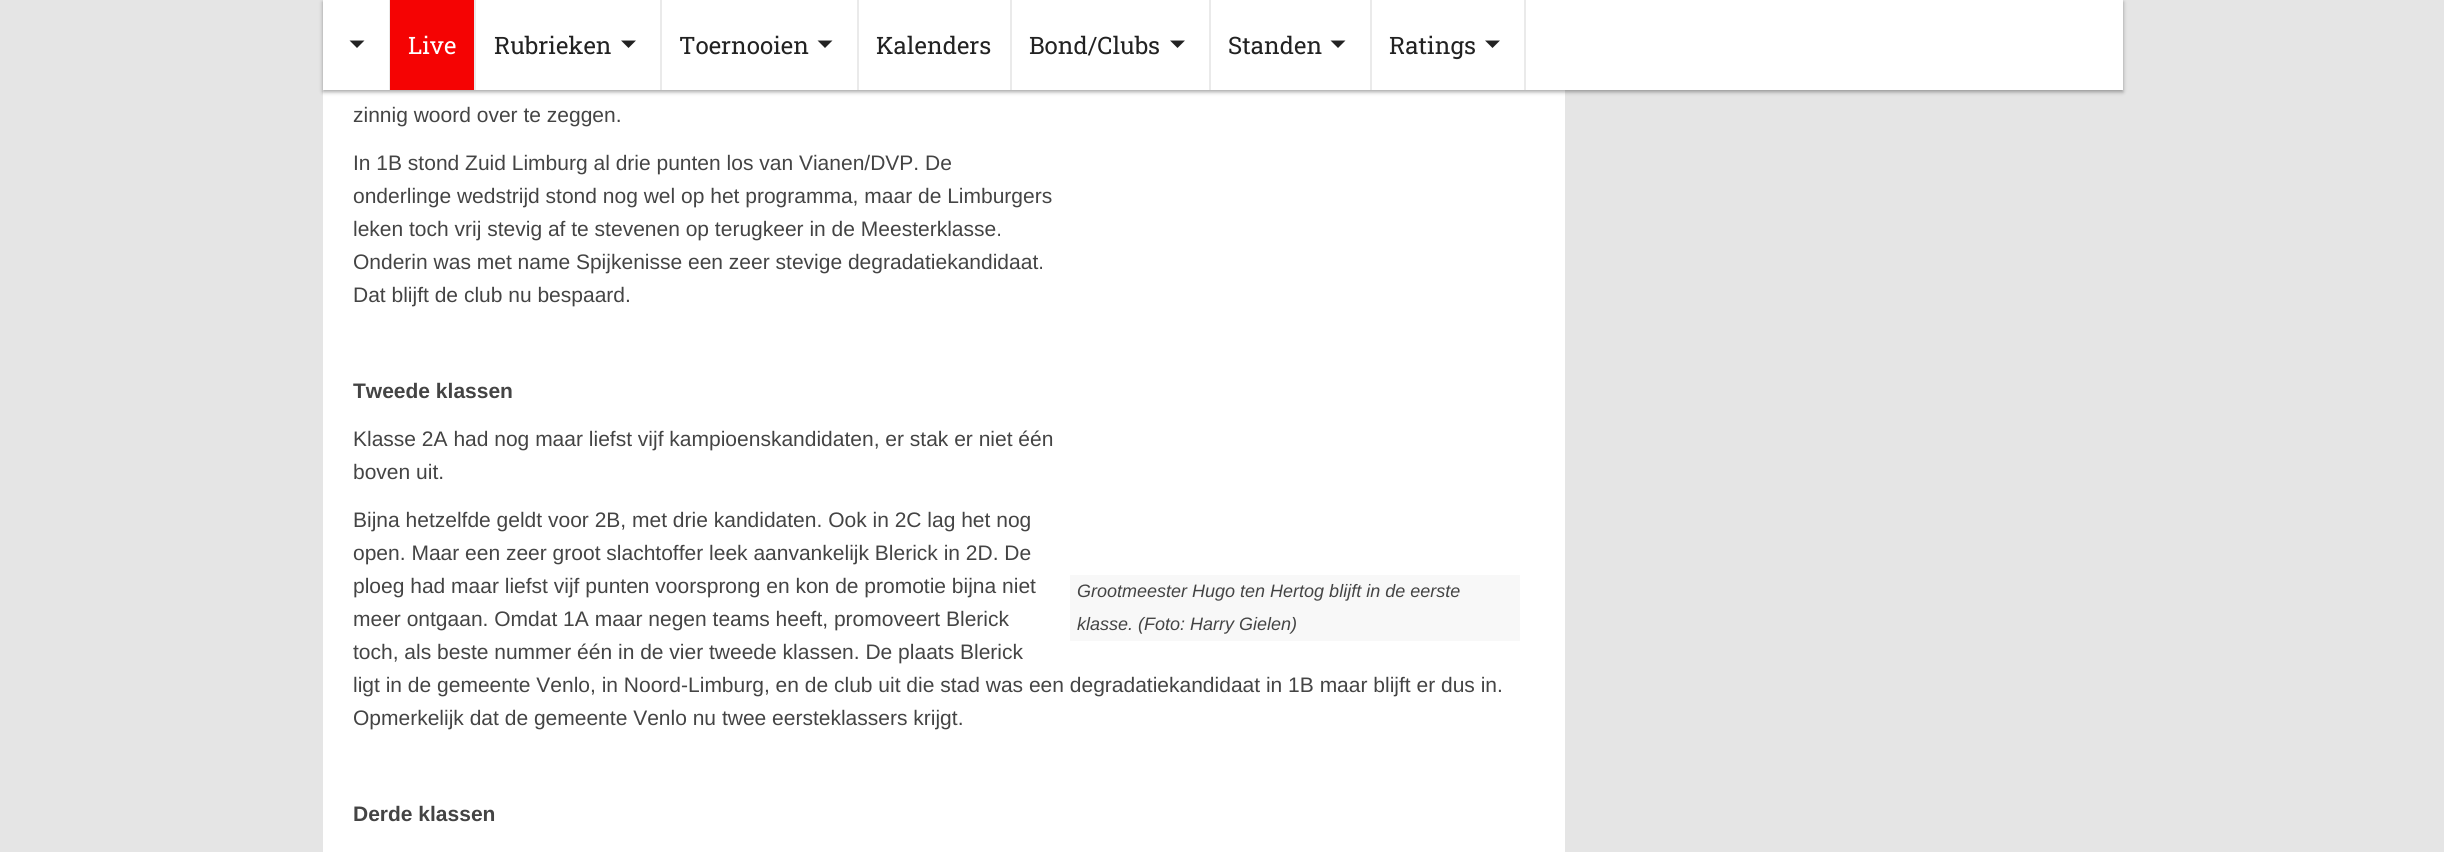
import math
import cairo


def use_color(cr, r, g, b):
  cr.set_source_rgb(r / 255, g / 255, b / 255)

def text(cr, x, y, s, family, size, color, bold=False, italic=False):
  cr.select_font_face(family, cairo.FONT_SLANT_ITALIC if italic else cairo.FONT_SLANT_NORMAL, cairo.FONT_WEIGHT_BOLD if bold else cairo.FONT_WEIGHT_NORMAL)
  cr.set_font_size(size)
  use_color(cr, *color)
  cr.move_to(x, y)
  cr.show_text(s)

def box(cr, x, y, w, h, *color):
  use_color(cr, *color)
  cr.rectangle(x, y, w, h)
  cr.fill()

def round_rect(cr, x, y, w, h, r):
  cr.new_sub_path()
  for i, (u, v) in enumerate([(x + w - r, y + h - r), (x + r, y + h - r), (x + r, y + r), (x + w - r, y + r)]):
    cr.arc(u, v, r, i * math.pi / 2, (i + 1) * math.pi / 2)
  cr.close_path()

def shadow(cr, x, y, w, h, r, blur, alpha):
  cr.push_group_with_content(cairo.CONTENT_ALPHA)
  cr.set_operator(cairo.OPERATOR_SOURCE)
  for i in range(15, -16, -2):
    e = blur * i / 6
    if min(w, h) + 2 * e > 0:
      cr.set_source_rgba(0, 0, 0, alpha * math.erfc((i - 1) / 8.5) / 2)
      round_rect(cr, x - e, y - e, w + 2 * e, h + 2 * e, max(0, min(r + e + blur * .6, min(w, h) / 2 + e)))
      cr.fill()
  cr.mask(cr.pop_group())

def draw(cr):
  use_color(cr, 229, 229, 229)
  cr.paint()
  box(cr, 323, 90, 1242, 762, 255, 255, 255)
  use_color(cr, 0, 0, 0)
  shadow(cr, 323, 2, 1800, 90, 0, 2, 0.35)
  box(cr, 323, 0, 1800, 90, 255, 255, 255)
  box(cr, 389, 0, 1, 90, 234, 234, 234)
  use_color(cr, 34, 34, 34)
  cr.new_path()
  cr.move_to(349.5, 40.5)
  cr.line_to(364.5, 40.5)
  cr.line_to(357, 48)
  cr.close_path()
  cr.fill()
  box(cr, 390, 0, 84, 90, 245, 3, 3)
  box(cr, 474, 0, 2, 90, 234, 234, 234)
  box(cr, 660, 0, 2, 90, 234, 234, 234)
  use_color(cr, 34, 34, 34)
  cr.new_path()
  cr.move_to(621, 40.5)
  cr.line_to(636, 40.5)
  cr.line_to(628.5, 48)
  cr.close_path()
  cr.fill()
  box(cr, 857, 0, 2, 90, 234, 234, 234)
  use_color(cr, 34, 34, 34)
  cr.new_path()
  cr.move_to(817.5, 40.5)
  cr.line_to(832.5, 40.5)
  cr.line_to(825, 48)
  cr.close_path()
  cr.fill()
  box(cr, 1010, 0, 2, 90, 234, 234, 234)
  box(cr, 1209, 0, 2, 90, 234, 234, 234)
  use_color(cr, 34, 34, 34)
  cr.new_path()
  cr.move_to(1170, 40.5)
  cr.line_to(1185, 40.5)
  cr.line_to(1177.5, 48)
  cr.close_path()
  cr.fill()
  box(cr, 1370, 0, 2, 90, 234, 234, 234)
  use_color(cr, 34, 34, 34)
  cr.new_path()
  cr.move_to(1330.5, 40.5)
  cr.line_to(1345.5, 40.5)
  cr.line_to(1338, 48)
  cr.close_path()
  cr.fill()
  box(cr, 1524, 0, 2, 90, 234, 234, 234)
  use_color(cr, 34, 34, 34)
  cr.new_path()
  cr.move_to(1485, 40.5)
  cr.line_to(1500, 40.5)
  cr.line_to(1492.5, 48)
  cr.close_path()
  cr.fill()
  box(cr, 1070, 575, 450, 66, 248, 248, 248)
  text(cr, 408, 54, "Live", "Roboto Slab", 24, (255, 255, 255))
  text(cr, 494, 54, "Rubrieken", "Roboto Slab", 24, (34, 34, 34))
  text(cr, 679, 54, "Toernooien", "Roboto Slab", 24, (34, 34, 34))
  text(cr, 876, 54, "Kalenders", "Roboto Slab", 24, (34, 34, 34))
  text(cr, 1029, 54, "Bond/Clubs", "Roboto Slab", 24, (34, 34, 34))
  text(cr, 1228, 54, "Standen", "Roboto Slab", 24, (34, 34, 34))
  text(cr, 1389, 54, "Ratings", "Roboto Slab", 24, (34, 34, 34))
  text(cr, 353, 122, "zinnig woord over te zeggen.", "Liberation Sans", 21, (68, 68, 68))
  text(cr, 353, 170, "In 1B stond Zuid Limburg al drie punten los van Vianen/DVP. De", "Liberation Sans", 21, (68, 68, 68))
  text(cr, 353, 203, "onderlinge wedstrijd stond nog wel op het programma, maar de Limburgers", "Liberation Sans", 21, (68, 68, 68))
  text(cr, 353, 236, "leken toch vrij stevig af te stevenen op terugkeer in de Meesterklasse.", "Liberation Sans", 21, (68, 68, 68))
  text(cr, 353, 269, "Onderin was met name Spijkenisse een zeer stevige degradatiekandidaat.", "Liberation Sans", 21, (68, 68, 68))
  text(cr, 353, 302, "Dat blijft de club nu bespaard.", "Liberation Sans", 21, (68, 68, 68))
  text(cr, 353, 398, "Tweede klassen", "Liberation Sans", 21, (68, 68, 68), bold=True)
  text(cr, 353, 446, "Klasse 2A had nog maar liefst vijf kampioenskandidaten, er stak er niet één", "Liberation Sans", 21, (68, 68, 68))
  text(cr, 353, 479, "boven uit.", "Liberation Sans", 21, (68, 68, 68))
  text(cr, 353, 527, "Bijna hetzelfde geldt voor 2B, met drie kandidaten. Ook in 2C lag het nog", "Liberation Sans", 21, (68, 68, 68))
  text(cr, 353, 560, "open. Maar een zeer groot slachtoffer leek aanvankelijk Blerick in 2D. De", "Liberation Sans", 21, (68, 68, 68))
  text(cr, 353, 593, "ploeg had maar liefst vijf punten voorsprong en kon de promotie bijna niet", "Liberation Sans", 21, (68, 68, 68))
  text(cr, 353, 626, "meer ontgaan. Omdat 1A maar negen teams heeft, promoveert Blerick", "Liberation Sans", 21, (68, 68, 68))
  text(cr, 353, 659, "toch, als beste nummer één in de vier tweede klassen. De plaats Blerick", "Liberation Sans", 21, (68, 68, 68))
  text(cr, 353, 692, "ligt in de gemeente Venlo, in Noord-Limburg, en de club uit die stad was een degradatiekandidaat in 1B maar blijft er dus in.", "Liberation Sans", 21, (68, 68, 68))
  text(cr, 353, 725, "Opmerkelijk dat de gemeente Venlo nu twee eersteklassers krijgt.", "Liberation Sans", 21, (68, 68, 68))
  text(cr, 1077, 597, "Grootmeester Hugo ten Hertog blijft in de eerste", "Liberation Sans", 18, (68, 68, 68), italic=True)
  text(cr, 1077, 630, "klasse. (Foto: Harry Gielen)", "Liberation Sans", 18, (68, 68, 68), italic=True)
  text(cr, 353, 821, "Derde klassen", "Liberation Sans", 21, (68, 68, 68), bold=True)


surface = cairo.ImageSurface(cairo.FORMAT_RGB24, 2444, 852)
cr = cairo.Context(surface)
options = cairo.FontOptions()
options.set_hint_metrics(cairo.HINT_METRICS_OFF)
options.set_hint_style(cairo.HINT_STYLE_NONE)
cr.set_font_options(options)
cr.set_miter_limit(4)
draw(cr)
surface.write_to_png("out.png")
